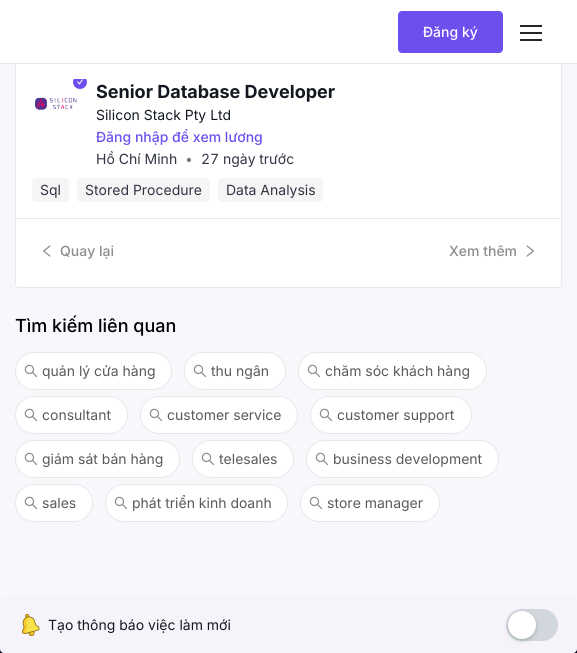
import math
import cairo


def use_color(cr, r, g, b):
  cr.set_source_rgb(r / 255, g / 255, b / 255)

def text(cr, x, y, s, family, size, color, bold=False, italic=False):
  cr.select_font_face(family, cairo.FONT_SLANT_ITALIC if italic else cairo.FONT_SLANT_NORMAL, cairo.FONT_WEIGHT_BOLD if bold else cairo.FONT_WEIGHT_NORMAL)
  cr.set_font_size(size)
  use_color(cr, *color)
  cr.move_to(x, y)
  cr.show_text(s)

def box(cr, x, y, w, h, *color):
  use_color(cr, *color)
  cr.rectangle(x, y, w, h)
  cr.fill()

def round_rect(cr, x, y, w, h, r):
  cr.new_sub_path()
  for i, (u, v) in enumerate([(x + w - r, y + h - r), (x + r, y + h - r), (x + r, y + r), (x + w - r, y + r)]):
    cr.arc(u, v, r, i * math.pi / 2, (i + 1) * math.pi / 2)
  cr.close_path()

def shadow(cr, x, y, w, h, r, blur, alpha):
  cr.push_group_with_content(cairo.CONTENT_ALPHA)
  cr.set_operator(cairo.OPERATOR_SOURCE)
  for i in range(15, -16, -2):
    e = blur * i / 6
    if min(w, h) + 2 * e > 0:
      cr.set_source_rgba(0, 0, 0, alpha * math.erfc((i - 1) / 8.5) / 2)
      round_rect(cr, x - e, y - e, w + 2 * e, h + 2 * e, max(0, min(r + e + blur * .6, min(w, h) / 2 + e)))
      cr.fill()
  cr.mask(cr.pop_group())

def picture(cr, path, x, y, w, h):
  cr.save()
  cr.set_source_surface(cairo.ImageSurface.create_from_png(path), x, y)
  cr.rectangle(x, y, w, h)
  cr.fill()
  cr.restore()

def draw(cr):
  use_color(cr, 246, 248, 252)
  cr.paint()
  use_color(cr, 255, 255, 255)
  cr.new_path()
  cr.move_to(15, 64)
  cr.line_to(562, 64)
  cr.line_to(562, 284)
  cr.curve_to(562, 286, 560, 288, 558, 288)
  cr.line_to(19, 288)
  cr.curve_to(17, 288, 15, 286, 15, 284)
  cr.close_path()
  cr.fill()
  use_color(cr, 232, 232, 232)
  cr.set_fill_rule(cairo.FILL_RULE_EVEN_ODD)
  cr.new_path()
  cr.move_to(15, 64)
  cr.line_to(562, 64)
  cr.line_to(562, 284)
  cr.curve_to(562, 286, 560, 288, 558, 288)
  cr.line_to(19, 288)
  cr.curve_to(17, 288, 15, 286, 15, 284)
  cr.close_path()
  cr.move_to(16, 64)
  cr.line_to(561, 64)
  cr.line_to(561, 284)
  cr.curve_to(561, 286, 560, 287, 558, 287)
  cr.line_to(19, 287)
  cr.curve_to(17, 287, 16, 286, 16, 284)
  cr.close_path()
  cr.fill()
  cr.new_path()
  cr.move_to(19, 28)
  cr.line_to(558, 28)
  cr.curve_to(560, 28, 562, 30, 562, 32)
  cr.line_to(562, 79)
  cr.line_to(15, 79)
  cr.line_to(15, 32)
  cr.curve_to(15, 30, 17, 28, 19, 28)
  cr.close_path()
  cr.move_to(19, 29)
  cr.line_to(558, 29)
  cr.curve_to(560, 29, 561, 30, 561, 32)
  cr.line_to(561, 79)
  cr.line_to(16, 79)
  cr.line_to(16, 32)
  cr.curve_to(16, 30, 17, 29, 19, 29)
  cr.close_path()
  cr.fill()
  box(cr, 0, 0, 577, 63, 255, 255, 255)
  box(cr, 0, 63, 577, 1, 232, 232, 232)
  use_color(cr, 109, 79, 237)
  round_rect(cr, 398.5, 11.5, 104, 41, 3.5)
  cr.fill_preserve()
  cr.set_line_width(1)
  cr.stroke()
  box(cr, 520, 25, 22, 2, 38, 38, 38)
  box(cr, 520, 32, 22, 2, 38, 38, 38)
  box(cr, 520, 39, 22, 2, 38, 38, 38)
  box(cr, 16, 218, 545, 1, 232, 232, 232)
  picture(cr, "img_01.png", 73, 79, 14, 10)
  picture(cr, "img_02.png", 35, 97, 42, 13)
  use_color(cr, 245, 245, 245)
  round_rect(cr, 32, 178, 37, 24, 4)
  cr.fill()
  round_rect(cr, 77, 178, 133, 24, 4)
  cr.fill()
  round_rect(cr, 218, 178, 105, 24, 4)
  cr.fill()
  picture(cr, "img_03.png", 43, 245, 8, 12)
  picture(cr, "img_04.png", 526, 245, 8, 12)
  use_color(cr, 255, 255, 255)
  round_rect(cr, 15.5, 352.5, 156, 37, 18.5)
  cr.fill_preserve()
  use_color(cr, 232, 232, 232)
  cr.stroke()
  picture(cr, "img_05.png", 24, 364, 14, 14)
  use_color(cr, 255, 255, 255)
  round_rect(cr, 184.5, 352.5, 101, 37, 18.5)
  cr.fill_preserve()
  use_color(cr, 232, 232, 232)
  cr.stroke()
  picture(cr, "img_05.png", 193, 364, 14, 14)
  use_color(cr, 255, 255, 255)
  round_rect(cr, 298.5, 352.5, 188, 37, 18.5)
  cr.fill_preserve()
  use_color(cr, 232, 232, 232)
  cr.stroke()
  picture(cr, "img_05.png", 307, 364, 14, 14)
  use_color(cr, 255, 255, 255)
  round_rect(cr, 15.5, 396.5, 112, 37, 18.5)
  cr.fill_preserve()
  use_color(cr, 232, 232, 232)
  cr.stroke()
  picture(cr, "img_05.png", 24, 408, 14, 14)
  use_color(cr, 255, 255, 255)
  round_rect(cr, 140.5, 396.5, 157, 37, 18.5)
  cr.fill_preserve()
  use_color(cr, 232, 232, 232)
  cr.stroke()
  picture(cr, "img_05.png", 149, 408, 14, 14)
  use_color(cr, 255, 255, 255)
  round_rect(cr, 310.5, 396.5, 161, 37, 18.5)
  cr.fill_preserve()
  use_color(cr, 232, 232, 232)
  cr.stroke()
  picture(cr, "img_05.png", 319, 408, 14, 14)
  use_color(cr, 255, 255, 255)
  round_rect(cr, 15.5, 440.5, 164, 37, 18.5)
  cr.fill_preserve()
  use_color(cr, 232, 232, 232)
  cr.stroke()
  picture(cr, "img_05.png", 24, 452, 14, 14)
  use_color(cr, 255, 255, 255)
  round_rect(cr, 192.5, 440.5, 101, 37, 18.5)
  cr.fill_preserve()
  use_color(cr, 232, 232, 232)
  cr.stroke()
  picture(cr, "img_05.png", 201, 452, 14, 14)
  use_color(cr, 255, 255, 255)
  round_rect(cr, 306.5, 440.5, 192, 37, 18.5)
  cr.fill_preserve()
  use_color(cr, 232, 232, 232)
  cr.stroke()
  picture(cr, "img_05.png", 315, 452, 14, 14)
  use_color(cr, 255, 255, 255)
  round_rect(cr, 15.5, 484.5, 77, 37, 18.5)
  cr.fill_preserve()
  use_color(cr, 232, 232, 232)
  cr.stroke()
  picture(cr, "img_05.png", 24, 496, 14, 14)
  use_color(cr, 255, 255, 255)
  round_rect(cr, 105.5, 484.5, 182, 37, 18.5)
  cr.fill_preserve()
  use_color(cr, 232, 232, 232)
  cr.stroke()
  picture(cr, "img_05.png", 114, 496, 14, 14)
  use_color(cr, 255, 255, 255)
  round_rect(cr, 300.5, 484.5, 139, 37, 18.5)
  cr.fill_preserve()
  use_color(cr, 232, 232, 232)
  cr.stroke()
  picture(cr, "img_05.png", 309, 496, 14, 14)
  box(cr, 0, 649, 577, 4, 8, 3, 25)
  use_color(cr, 246, 244, 250)
  round_rect(cr, 0, 597, 577, 56, 4)
  cr.fill()
  picture(cr, "img_06.png", 22, 614, 18, 22)
  use_color(cr, 209, 215, 220)
  round_rect(cr, 506, 609, 52, 32, 16)
  cr.fill()
  use_color(cr, 0, 35, 11)
  shadow(cr, 508, 613, 28, 28, 14, 2, 0.2)
  use_color(cr, 255, 255, 255)
  cr.arc(522, 625, 14, 0, 2 * math.pi)
  cr.fill()
  text(cr, 423, 37, "Đăng ký", "Inter Medium", 14, (255, 255, 255))
  text(cr, 96, 98, "Senior Database Developer", "Inter", 18, (20, 25, 33), bold=True)
  text(cr, 96, 120, "Silicon Stack Pty Ltd", "Inter", 14, (20, 25, 33))
  text(cr, 96, 142, "Đăng nhập để xem lương", "Inter Medium", 14, (109, 79, 237))
  text(cr, 96, 164, "Hồ Chí Minh", "Inter", 14, (49, 53, 67))
  text(cr, 185, 164, "•", "Inter", 14, (122, 124, 130))
  text(cr, 201, 164, "27 ngày trước", "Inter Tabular", 14, (49, 53, 67))
  text(cr, 40, 195, "Sql", "Inter", 14, (49, 53, 67))
  text(cr, 85, 195, "Stored Procedure", "Inter", 14, (49, 53, 67))
  text(cr, 226, 195, "Data Analysis", "Inter", 14, (49, 53, 67))
  text(cr, 60, 256, "Quay lại", "Inter Medium", 14, (140, 140, 140))
  text(cr, 449, 256, "Xem thêm", "Inter Medium", 14, (140, 140, 140))
  text(cr, 15, 332, "Tìm kiếm liên quan", "Inter Medium", 18, (0, 0, 0))
  text(cr, 42, 376, "quản lý cửa hàng", "Inter", 14, (89, 89, 89))
  text(cr, 211, 376, "thu ngân", "Inter", 14, (89, 89, 89))
  text(cr, 325, 376, "chăm sóc khách hàng", "Inter", 14, (89, 89, 89))
  text(cr, 42, 420, "consultant", "Inter", 14, (89, 89, 89))
  text(cr, 167, 420, "customer service", "Inter", 14, (89, 89, 89))
  text(cr, 337, 420, "customer support", "Inter", 14, (89, 89, 89))
  text(cr, 42, 464, "giám sát bán hàng", "Inter", 14, (89, 89, 89))
  text(cr, 219, 464, "telesales", "Inter", 14, (89, 89, 89))
  text(cr, 333, 464, "business development", "Inter", 14, (89, 89, 89))
  text(cr, 42, 508, "sales", "Inter", 14, (89, 89, 89))
  text(cr, 132, 508, "phát triển kinh doanh", "Inter", 14, (89, 89, 89))
  text(cr, 327, 508, "store manager", "Inter", 14, (89, 89, 89))
  text(cr, 48, 630, "Tạo thông báo việc làm mới", "Inter", 14, (20, 25, 33))


surface = cairo.ImageSurface(cairo.FORMAT_RGB24, 577, 653)
cr = cairo.Context(surface)
options = cairo.FontOptions()
options.set_hint_metrics(cairo.HINT_METRICS_OFF)
options.set_hint_style(cairo.HINT_STYLE_NONE)
cr.set_font_options(options)
cr.set_miter_limit(4)
draw(cr)
surface.write_to_png("out.png")
